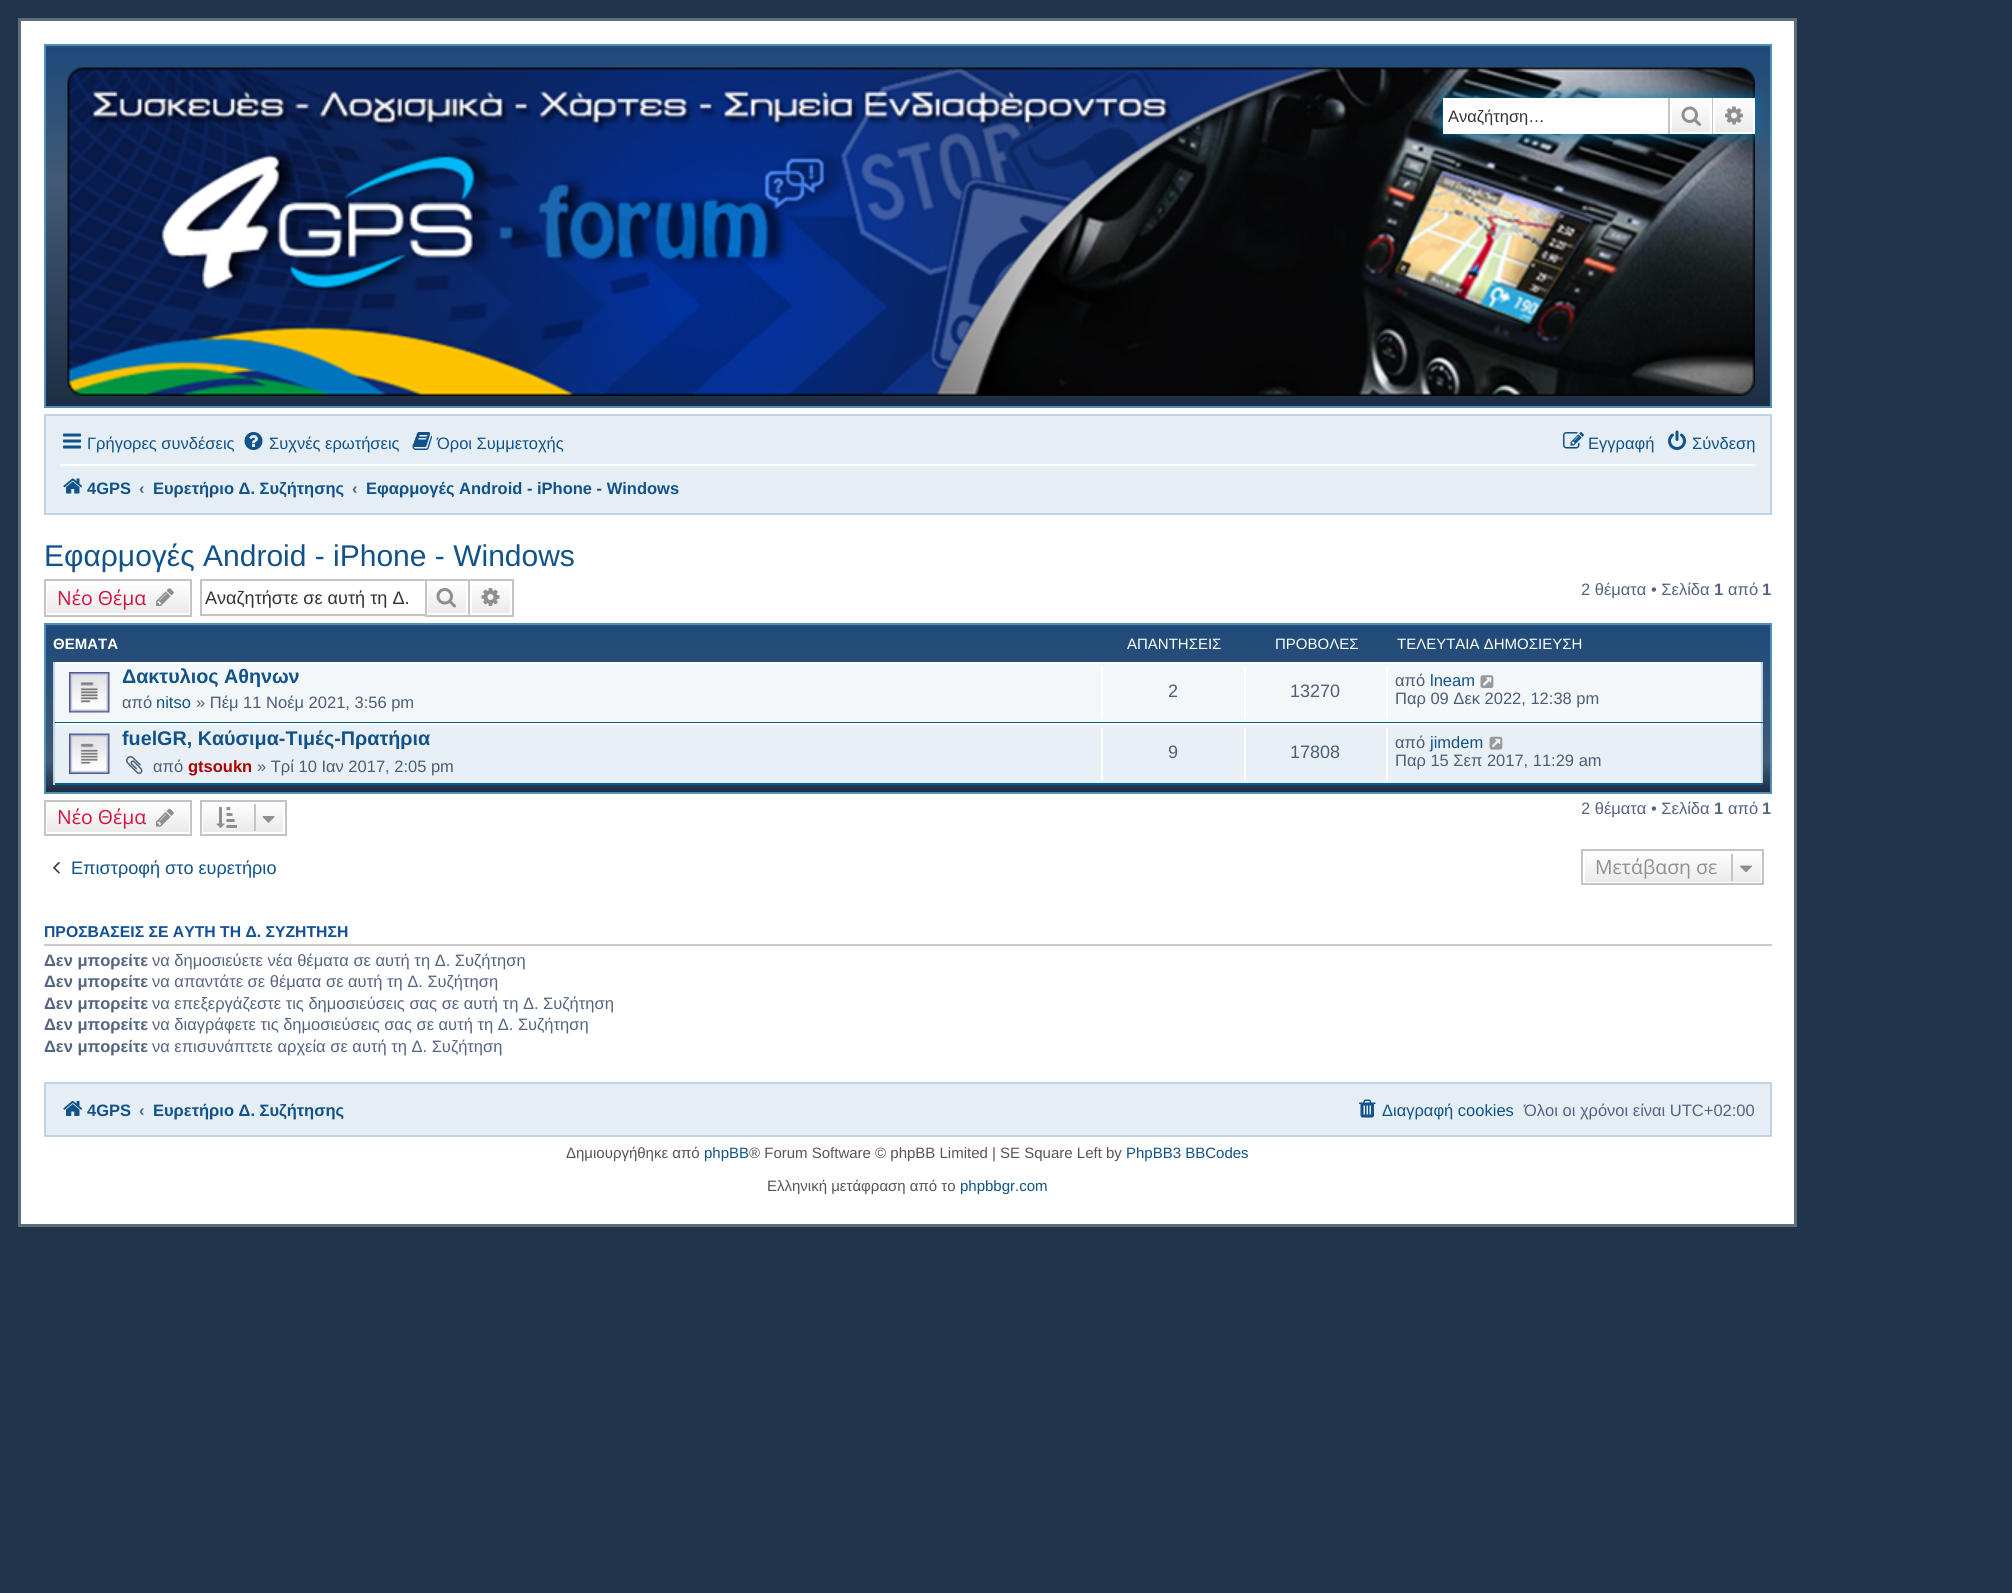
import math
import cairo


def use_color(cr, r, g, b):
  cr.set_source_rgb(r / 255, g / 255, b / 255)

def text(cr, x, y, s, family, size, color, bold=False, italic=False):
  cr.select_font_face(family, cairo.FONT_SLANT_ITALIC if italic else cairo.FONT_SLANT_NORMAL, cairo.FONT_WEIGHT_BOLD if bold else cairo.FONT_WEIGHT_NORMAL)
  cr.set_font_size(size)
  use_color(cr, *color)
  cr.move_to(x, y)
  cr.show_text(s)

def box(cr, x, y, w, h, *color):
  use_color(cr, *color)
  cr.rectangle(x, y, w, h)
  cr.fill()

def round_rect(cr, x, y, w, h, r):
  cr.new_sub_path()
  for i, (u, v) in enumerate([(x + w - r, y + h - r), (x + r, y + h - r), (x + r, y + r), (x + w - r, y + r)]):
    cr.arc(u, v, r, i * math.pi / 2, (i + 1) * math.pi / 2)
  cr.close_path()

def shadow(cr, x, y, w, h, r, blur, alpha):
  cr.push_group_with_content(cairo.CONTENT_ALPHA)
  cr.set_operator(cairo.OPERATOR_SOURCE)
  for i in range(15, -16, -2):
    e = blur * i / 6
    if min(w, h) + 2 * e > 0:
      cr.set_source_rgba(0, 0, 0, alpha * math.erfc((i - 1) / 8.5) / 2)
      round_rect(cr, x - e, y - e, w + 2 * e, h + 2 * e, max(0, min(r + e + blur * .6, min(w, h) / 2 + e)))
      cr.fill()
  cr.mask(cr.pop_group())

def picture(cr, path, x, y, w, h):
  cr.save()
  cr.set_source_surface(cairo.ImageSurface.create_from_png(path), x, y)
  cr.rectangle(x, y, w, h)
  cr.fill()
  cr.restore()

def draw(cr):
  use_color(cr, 32, 53, 76)
  cr.paint()
  use_color(cr, 255, 255, 255)
  cr.rectangle(19.5, 19.5, 1776, 1206)
  cr.fill_preserve()
  use_color(cr, 96, 110, 123)
  cr.set_line_width(3)
  cr.stroke()
  gradient = cairo.LinearGradient(908, 45, 908, 407)
  gradient.add_color_stop_rgba(0, 0.192, 0.322, 0.459, 1)
  gradient.add_color_stop_rgba(0.01, 0.122, 0.29, 0.478, 1)
  gradient.add_color_stop_rgba(0.38, 0.259, 0.353, 0.459, 1)
  gradient.add_color_stop_rgba(1, 0.11, 0.18, 0.263, 1)
  cr.set_source(gradient)
  cr.rectangle(46, 46, 1724, 360)
  cr.fill()
  cr.rectangle(45, 45, 1726, 362)
  use_color(cr, 79, 145, 182)
  cr.set_line_width(2)
  cr.stroke()
  picture(cr, "img_01.png", 67, 67, 1688, 329)
  use_color(cr, 0, 117, 176)
  shadow(cr, 1443, 98, 312, 36, 0, 7.5, 1)
  box(cr, 1443, 98, 225, 36, 255, 255, 255)
  gradient = cairo.LinearGradient(1691, 98, 1691, 134)
  gradient.add_color_stop_rgba(0, 1, 1, 1, 1)
  gradient.add_color_stop_rgba(1, 0.914, 0.914, 0.914, 1)
  cr.set_source(gradient)
  cr.rectangle(1672, 100, 38, 32)
  cr.fill()
  cr.rectangle(1671, 99, 40, 34)
  use_color(cr, 255, 255, 255)
  cr.stroke()
  box(cr, 1712, 98, 1, 36, 199, 195, 191)
  box(cr, 1668, 98, 2, 36, 199, 195, 191)
  picture(cr, "img_02.png", 1681, 106, 20, 20)
  gradient = cairo.LinearGradient(1734, 98, 1734, 134)
  gradient.add_color_stop_rgba(0, 1, 1, 1, 1)
  gradient.add_color_stop_rgba(1, 0.914, 0.914, 0.914, 1)
  cr.set_source(gradient)
  cr.rectangle(1715, 100, 38, 32)
  cr.fill()
  cr.rectangle(1714, 99, 40, 34)
  use_color(cr, 255, 255, 255)
  cr.stroke()
  picture(cr, "img_03.png", 1725, 106, 18, 19)
  use_color(cr, 229, 238, 245)
  cr.rectangle(45, 415, 1726, 99)
  cr.fill_preserve()
  use_color(cr, 188, 212, 227)
  cr.stroke()
  picture(cr, "img_04.png", 63, 433, 18, 16)
  picture(cr, "img_05.png", 244, 432, 19, 18)
  picture(cr, "img_06.png", 412, 432, 20, 18)
  picture(cr, "img_07.png", 1563, 432, 21, 17)
  picture(cr, "img_08.png", 1668, 430, 18, 20)
  box(cr, 60, 464, 1695, 2, 255, 255, 255)
  picture(cr, "img_09.png", 63, 478, 20, 16)
  gradient = cairo.LinearGradient(118, 581, 118, 615)
  gradient.add_color_stop_rgba(0, 1, 1, 1, 1)
  gradient.add_color_stop_rgba(1, 0.914, 0.914, 0.914, 1)
  cr.set_source(gradient)
  cr.rectangle(47, 585, 142, 28)
  cr.fill()
  cr.rectangle(45, 580, 146, 36)
  use_color(cr, 199, 195, 191)
  cr.stroke()
  picture(cr, "img_10.png", 156, 588, 18, 18)
  box(cr, 200, 579, 225, 2, 199, 195, 191)
  box(cr, 200, 614, 225, 2, 199, 195, 191)
  box(cr, 200, 579, 2, 36, 199, 195, 191)
  gradient = cairo.LinearGradient(447, 581, 447, 615)
  gradient.add_color_stop_rgba(0, 1, 1, 1, 1)
  gradient.add_color_stop_rgba(1, 0.914, 0.914, 0.914, 1)
  cr.set_source(gradient)
  cr.rectangle(428, 585, 38, 28)
  cr.fill()
  cr.rectangle(426, 580, 43, 36)
  use_color(cr, 199, 195, 191)
  cr.stroke()
  picture(cr, "img_11.png", 436, 588, 20, 20)
  gradient = cairo.LinearGradient(491, 581, 491, 615)
  gradient.add_color_stop_rgba(0, 1, 1, 1, 1)
  gradient.add_color_stop_rgba(1, 0.914, 0.914, 0.914, 1)
  cr.set_source(gradient)
  cr.rectangle(472, 585, 38, 28)
  cr.fill()
  box(cr, 470, 579, 43, 2, 199, 195, 191)
  box(cr, 512, 579, 2, 38, 199, 195, 191)
  box(cr, 470, 615, 43, 2, 199, 195, 191)
  picture(cr, "img_12.png", 481, 588, 19, 18)
  gradient = cairo.LinearGradient(908, 624, 908, 792)
  gradient.add_color_stop_rgba(0, 0.192, 0.322, 0.459, 1)
  gradient.add_color_stop_rgba(0.02, 0.122, 0.29, 0.478, 1)
  gradient.add_color_stop_rgba(0.82, 0.259, 0.353, 0.459, 1)
  gradient.add_color_stop_rgba(1, 0.11, 0.18, 0.263, 1)
  cr.set_source(gradient)
  cr.rectangle(46, 625, 1724, 167)
  cr.fill()
  cr.rectangle(45, 624, 1726, 169)
  use_color(cr, 79, 145, 182)
  cr.stroke()
  box(cr, 55, 664, 1706, 58, 243, 247, 250)
  box(cr, 53, 662, 1710, 2, 255, 255, 255)
  box(cr, 1761, 662, 2, 61, 188, 212, 227)
  box(cr, 53, 722, 1710, 1, 0, 96, 143)
  box(cr, 53, 662, 2, 61, 188, 212, 227)
  picture(cr, "img_13.png", 69, 672, 41, 41)
  box(cr, 1101, 666, 2, 53, 255, 255, 255)
  box(cr, 1244, 666, 2, 53, 255, 255, 255)
  box(cr, 1386, 666, 2, 53, 255, 255, 255)
  picture(cr, "img_14.png", 1480, 675, 14, 14)
  box(cr, 55, 725, 1706, 58, 233, 240, 245)
  box(cr, 53, 723, 1710, 2, 255, 255, 255)
  box(cr, 1761, 723, 2, 62, 188, 212, 227)
  box(cr, 53, 783, 1710, 2, 0, 96, 143)
  box(cr, 53, 723, 2, 62, 188, 212, 227)
  picture(cr, "img_15.png", 69, 733, 41, 41)
  picture(cr, "img_16.png", 126, 756, 17, 18)
  box(cr, 1101, 728, 2, 52, 255, 255, 255)
  box(cr, 1244, 728, 2, 52, 255, 255, 255)
  box(cr, 1386, 728, 2, 52, 255, 255, 255)
  picture(cr, "img_17.png", 1489, 736, 14, 14)
  gradient = cairo.LinearGradient(118, 801, 118, 834)
  gradient.add_color_stop_rgba(0, 1, 1, 1, 1)
  gradient.add_color_stop_rgba(1, 0.914, 0.914, 0.914, 1)
  cr.set_source(gradient)
  cr.rectangle(47, 805, 142, 27)
  cr.fill()
  cr.rectangle(45, 801, 146, 34)
  use_color(cr, 199, 195, 191)
  cr.stroke()
  picture(cr, "img_18.png", 156, 808, 18, 19)
  gradient = cairo.LinearGradient(243, 801, 243, 834)
  gradient.add_color_stop_rgba(0, 1, 1, 1, 1)
  gradient.add_color_stop_rgba(1, 0.914, 0.914, 0.914, 1)
  cr.set_source(gradient)
  cr.rectangle(203, 805, 80, 27)
  cr.fill()
  cr.rectangle(201, 801, 85, 34)
  use_color(cr, 199, 195, 191)
  cr.stroke()
  picture(cr, "img_19.png", 216, 807, 21, 21)
  box(cr, 254, 804, 2, 27, 199, 195, 191)
  picture(cr, "img_20.png", 262, 816, 13, 7)
  picture(cr, "img_21.png", 53, 862, 7, 12)
  gradient = cairo.LinearGradient(1673, 851, 1673, 884)
  gradient.add_color_stop_rgba(0, 1, 1, 1, 1)
  gradient.add_color_stop_rgba(1, 0.914, 0.914, 0.914, 1)
  cr.set_source(gradient)
  cr.rectangle(1585, 855, 176, 27)
  cr.fill()
  cr.rectangle(1582, 850, 181, 34)
  use_color(cr, 199, 195, 191)
  cr.stroke()
  box(cr, 1731, 854, 2, 27, 199, 195, 191)
  picture(cr, "img_22.png", 1740, 865, 12, 8)
  box(cr, 44, 944, 1728, 2, 204, 204, 204)
  use_color(cr, 229, 238, 245)
  cr.rectangle(45, 1083, 1726, 53)
  cr.fill_preserve()
  use_color(cr, 188, 212, 227)
  cr.stroke()
  picture(cr, "img_23.png", 63, 1101, 20, 15)
  picture(cr, "img_24.png", 1359, 1099, 17, 19)
  cr.save()
  cr.rectangle(1448, 107, 210, 18)
  cr.clip()
  text(cr, 1448, 122, "Αναζήτηση…", "Liberation Sans", 16.5, (51, 51, 51))
  cr.restore()
  text(cr, 87, 449, "Γρήγορες συνδέσεις", "Liberation Sans", 16.5, (16, 82, 137))
  text(cr, 269, 449, "Συχνές ερωτήσεις", "Liberation Sans", 16.5, (16, 82, 137))
  text(cr, 437, 449, "Όροι Συμμετοχής", "Liberation Sans", 16.5, (16, 82, 137))
  text(cr, 1588, 449, "Εγγραφή", "Liberation Sans", 16.5, (16, 82, 137))
  text(cr, 1692, 449, "Σύνδεση", "Liberation Sans", 16.5, (16, 82, 137))
  text(cr, 87, 494, "4GPS", "Liberation Sans", 16.5, (16, 82, 137), bold=True)
  text(cr, 139, 494, "‹", "Liberation Sans", 16.5, (83, 100, 130), bold=True)
  text(cr, 153, 494, "Ευρετήριο Δ. Συζήτησης", "Liberation Sans", 16.5, (16, 82, 137), bold=True)
  text(cr, 352, 494, "‹", "Liberation Sans", 16.5, (83, 100, 130), bold=True)
  text(cr, 366, 494, "Εφαρμογές Android - iPhone - Windows", "Liberation Sans", 16.5, (16, 82, 137), bold=True)
  text(cr, 44, 566, "Εφαρμογές Android - iPhone - Windows", "Liberation Sans", 30, (16, 82, 137))
  text(cr, 57, 605, "Νέο Θέμα", "Open Sans", 19.5, (211, 17, 65))
  text(cr, 205, 604, "Αναζητήστε σε αυτή τη Δ.", "Liberation Sans", 18.1, (51, 51, 51))
  text(cr, 1581, 595, "2 θέματα • Σελίδα", "Liberation Sans", 16.5, (83, 100, 130))
  text(cr, 1714, 595, "1", "Liberation Sans", 16.5, (83, 100, 130), bold=True)
  text(cr, 1728, 595, "από", "Liberation Sans", 16.5, (83, 100, 130))
  text(cr, 1762, 595, "1", "Liberation Sans", 16.5, (83, 100, 130), bold=True)
  text(cr, 53, 649, "ΘΕΜΑΤΑ", "Liberation Sans", 15, (255, 255, 255), bold=True)
  text(cr, 1127, 649, "ΑΠΑΝΤΗΣΕΙΣ", "Liberation Sans", 15, (255, 255, 255))
  text(cr, 1275, 649, "ΠΡΟΒΟΛΕΣ", "Liberation Sans", 15, (255, 255, 255))
  text(cr, 1397, 649, "ΤΕΛΕΥΤΑΙΑ ΔΗΜΟΣΙΕΥΣΗ", "Liberation Sans", 15, (255, 255, 255))
  text(cr, 122, 683, "Δακτυλιος Αθηνων", "Liberation Sans", 19.75, (16, 82, 137), bold=True)
  text(cr, 122, 708, "από", "Liberation Sans", 16.5, (76, 93, 119))
  text(cr, 156, 708, "nitso", "Liberation Sans", 16.5, (16, 82, 137))
  text(cr, 196, 708, "» Πέμ 11 Νοέμ 2021, 3:56 pm", "Liberation Sans", 16.5, (76, 93, 119))
  text(cr, 1168, 697, "2", "Liberation Sans", 18, (76, 93, 119))
  text(cr, 1290, 697, "13270", "Liberation Sans", 18, (76, 93, 119))
  text(cr, 1395, 686, "από", "Liberation Sans", 16.5, (76, 93, 119))
  text(cr, 1430, 686, "lneam", "Liberation Sans", 16.5, (16, 82, 137))
  text(cr, 1395, 704, "Παρ 09 Δεκ 2022, 12:38 pm", "Liberation Sans", 16.5, (76, 93, 119))
  text(cr, 122, 745, "fuelGR, Καύσιμα-Τιμές-Πρατήρια", "Liberation Sans", 19.75, (16, 82, 137), bold=True)
  text(cr, 153, 772, "από", "Liberation Sans", 16.5, (76, 93, 119))
  text(cr, 188, 772, "gtsoukn", "Liberation Sans", 16.5, (170, 0, 0), bold=True)
  text(cr, 257, 772, "» Τρί 10 Ιαν 2017, 2:05 pm", "Liberation Sans", 16.5, (76, 93, 119))
  text(cr, 1168, 758, "9", "Liberation Sans", 18, (76, 93, 119))
  text(cr, 1290, 758, "17808", "Liberation Sans", 18, (76, 93, 119))
  text(cr, 1395, 748, "από", "Liberation Sans", 16.5, (76, 93, 119))
  text(cr, 1430, 748, "jimdem", "Liberation Sans", 16.5, (16, 82, 137))
  text(cr, 1395, 766, "Παρ 15 Σεπ 2017, 11:29 am", "Liberation Sans", 16.5, (76, 93, 119))
  text(cr, 57, 824, "Νέο Θέμα", "Open Sans", 19.5, (211, 17, 65))
  text(cr, 1581, 814, "2 θέματα • Σελίδα", "Liberation Sans", 16.5, (83, 100, 130))
  text(cr, 1714, 814, "1", "Liberation Sans", 16.5, (83, 100, 130), bold=True)
  text(cr, 1728, 814, "από", "Liberation Sans", 16.5, (83, 100, 130))
  text(cr, 1762, 814, "1", "Liberation Sans", 16.5, (83, 100, 130), bold=True)
  text(cr, 71, 874, "Επιστροφή στο ευρετήριο", "Liberation Sans", 18.1, (16, 82, 137))
  text(cr, 1595, 874, "Μετάβαση σε", "Open Sans", 19.5, (143, 143, 143))
  text(cr, 44, 937, "ΠΡΟΣΒΑΣΕΙΣ ΣΕ ΑΥΤΗ ΤΗ Δ. ΣΥΖΗΤΗΣΗ", "Liberation Sans", 15.75, (17, 80, 152), bold=True)
  text(cr, 44, 966, "Δεν μπορείτε", "Liberation Sans", 16.5, (83, 100, 130), bold=True)
  text(cr, 152, 966, "να δημοσιεύετε νέα θέματα σε αυτή τη Δ. Συζήτηση", "Liberation Sans", 16.5, (83, 100, 130))
  text(cr, 44, 987, "Δεν μπορείτε", "Liberation Sans", 16.5, (83, 100, 130), bold=True)
  text(cr, 152, 987, "να απαντάτε σε θέματα σε αυτή τη Δ. Συζήτηση", "Liberation Sans", 16.5, (83, 100, 130))
  text(cr, 44, 1009, "Δεν μπορείτε", "Liberation Sans", 16.5, (83, 100, 130), bold=True)
  text(cr, 152, 1009, "να επεξεργάζεστε τις δημοσιεύσεις σας σε αυτή τη Δ. Συζήτηση", "Liberation Sans", 16.5, (83, 100, 130))
  text(cr, 44, 1030, "Δεν μπορείτε", "Liberation Sans", 16.5, (83, 100, 130), bold=True)
  text(cr, 152, 1030, "να διαγράφετε τις δημοσιεύσεις σας σε αυτή τη Δ. Συζήτηση", "Liberation Sans", 16.5, (83, 100, 130))
  text(cr, 44, 1052, "Δεν μπορείτε", "Liberation Sans", 16.5, (83, 100, 130), bold=True)
  text(cr, 152, 1052, "να επισυνάπτετε αρχεία σε αυτή τη Δ. Συζήτηση", "Liberation Sans", 16.5, (83, 100, 130))
  text(cr, 87, 1116, "4GPS", "Liberation Sans", 16.5, (16, 82, 137), bold=True)
  text(cr, 139, 1116, "‹", "Liberation Sans", 16.5, (83, 100, 130), bold=True)
  text(cr, 153, 1116, "Ευρετήριο Δ. Συζήτησης", "Liberation Sans", 16.5, (16, 82, 137), bold=True)
  text(cr, 1382, 1116, "Διαγραφή cookies", "Liberation Sans", 16.5, (16, 82, 137))
  text(cr, 1524, 1116, "Όλοι οι χρόνοι είναι UTC+02:00", "Liberation Sans", 16.5, (83, 100, 130))
  text(cr, 566, 1158, "Δημιουργήθηκε από", "Liberation Sans", 15, (85, 85, 85))
  text(cr, 704, 1158, "phpBB", "Liberation Sans", 15, (16, 82, 137))
  text(cr, 749, 1158, "® Forum Software © phpBB Limited | SE Square Left by", "Liberation Sans", 15, (85, 85, 85))
  text(cr, 1126, 1158, "PhpBB3 BBCodes", "Liberation Sans", 15, (16, 82, 137))
  text(cr, 767, 1191, "Ελληνική μετάφραση από το", "Liberation Sans", 15, (85, 85, 85))
  text(cr, 960, 1191, "phpbbgr.com", "Liberation Sans", 15, (16, 82, 137))


surface = cairo.ImageSurface(cairo.FORMAT_RGB24, 2012, 1593)
cr = cairo.Context(surface)
options = cairo.FontOptions()
options.set_hint_metrics(cairo.HINT_METRICS_OFF)
options.set_hint_style(cairo.HINT_STYLE_NONE)
cr.set_font_options(options)
cr.set_miter_limit(4)
draw(cr)
surface.write_to_png("out.png")
